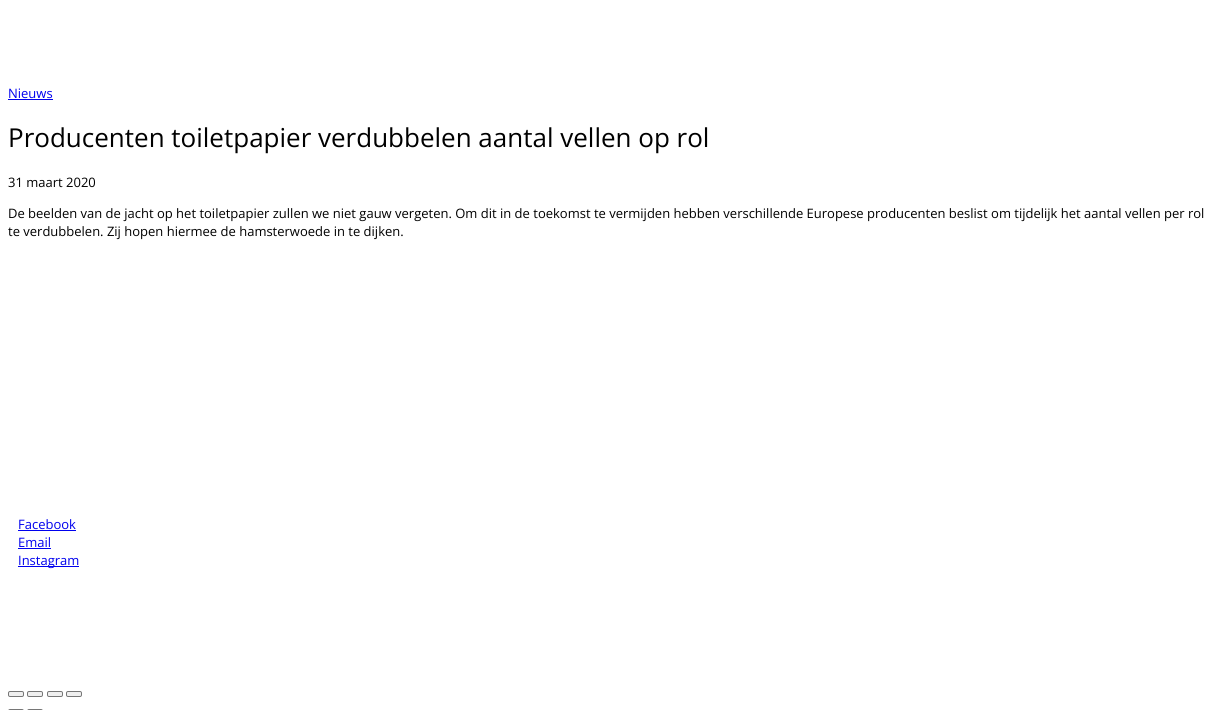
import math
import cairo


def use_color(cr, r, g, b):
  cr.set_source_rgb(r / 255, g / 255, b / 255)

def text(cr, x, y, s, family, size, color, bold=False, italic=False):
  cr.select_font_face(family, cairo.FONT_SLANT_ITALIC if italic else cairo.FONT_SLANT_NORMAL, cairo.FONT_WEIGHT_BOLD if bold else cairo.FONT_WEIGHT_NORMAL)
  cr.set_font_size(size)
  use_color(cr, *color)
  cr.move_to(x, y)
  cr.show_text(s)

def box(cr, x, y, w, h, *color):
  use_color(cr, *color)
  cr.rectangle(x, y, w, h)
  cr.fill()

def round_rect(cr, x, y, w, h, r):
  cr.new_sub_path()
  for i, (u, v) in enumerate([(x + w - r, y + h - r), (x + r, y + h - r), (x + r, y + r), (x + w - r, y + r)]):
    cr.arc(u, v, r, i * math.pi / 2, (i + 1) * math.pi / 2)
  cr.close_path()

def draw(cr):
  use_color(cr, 255, 255, 255)
  cr.paint()
  box(cr, 8, 99, 45, 1, 0, 0, 238)
  box(cr, 18, 530, 58, 1, 0, 0, 238)
  box(cr, 18, 548, 33, 1, 0, 0, 238)
  box(cr, 18, 566, 61, 1, 0, 0, 238)
  use_color(cr, 239, 239, 239)
  round_rect(cr, 8.5, 691.5, 15, 5, 1.5)
  cr.fill_preserve()
  use_color(cr, 118, 118, 118)
  cr.set_line_width(1)
  cr.stroke()
  use_color(cr, 239, 239, 239)
  round_rect(cr, 27.5, 691.5, 15, 5, 1.5)
  cr.fill_preserve()
  use_color(cr, 118, 118, 118)
  cr.stroke()
  use_color(cr, 239, 239, 239)
  round_rect(cr, 47.5, 691.5, 15, 5, 1.5)
  cr.fill_preserve()
  use_color(cr, 118, 118, 118)
  cr.stroke()
  use_color(cr, 239, 239, 239)
  round_rect(cr, 66.5, 691.5, 15, 5, 1.5)
  cr.fill_preserve()
  use_color(cr, 118, 118, 118)
  cr.stroke()
  round_rect(cr, 8.5, 709.5, 15, 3, 1.5)
  cr.stroke()
  round_rect(cr, 27.5, 709.5, 15, 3, 1.5)
  cr.stroke()
  text(cr, 8, 98, "Nieuws", "Open Sans", 13, (0, 0, 238))
  text(cr, 8, 147, "Producenten toiletpapier verdubbelen aantal vellen op rol", "Open Sans", 26, (0, 0, 0))
  text(cr, 8, 187, "31 maart 2020", "Open Sans", 13, (0, 0, 0))
  text(cr, 8, 218, "De beelden van de jacht op het toiletpapier zullen we niet gauw vergeten. Om dit in de toekomst te vermijden hebben verschillende Europese producenten beslist om tijdelijk het aantal vellen per rol", "Open Sans", 13, (0, 0, 0))
  text(cr, 8, 236, "te verdubbelen. Zij hopen hiermee de hamsterwoede in te dijken.", "Open Sans", 13, (0, 0, 0))
  text(cr, 18, 529, "Facebook", "Open Sans", 13, (0, 0, 238))
  text(cr, 18, 547, "Email", "Open Sans", 13, (0, 0, 238))
  text(cr, 18, 565, "Instagram", "Open Sans", 13, (0, 0, 238))


surface = cairo.ImageSurface(cairo.FORMAT_RGB24, 1227, 710)
cr = cairo.Context(surface)
options = cairo.FontOptions()
options.set_hint_metrics(cairo.HINT_METRICS_OFF)
options.set_hint_style(cairo.HINT_STYLE_NONE)
cr.set_font_options(options)
cr.set_miter_limit(4)
draw(cr)
surface.write_to_png("out.png")
